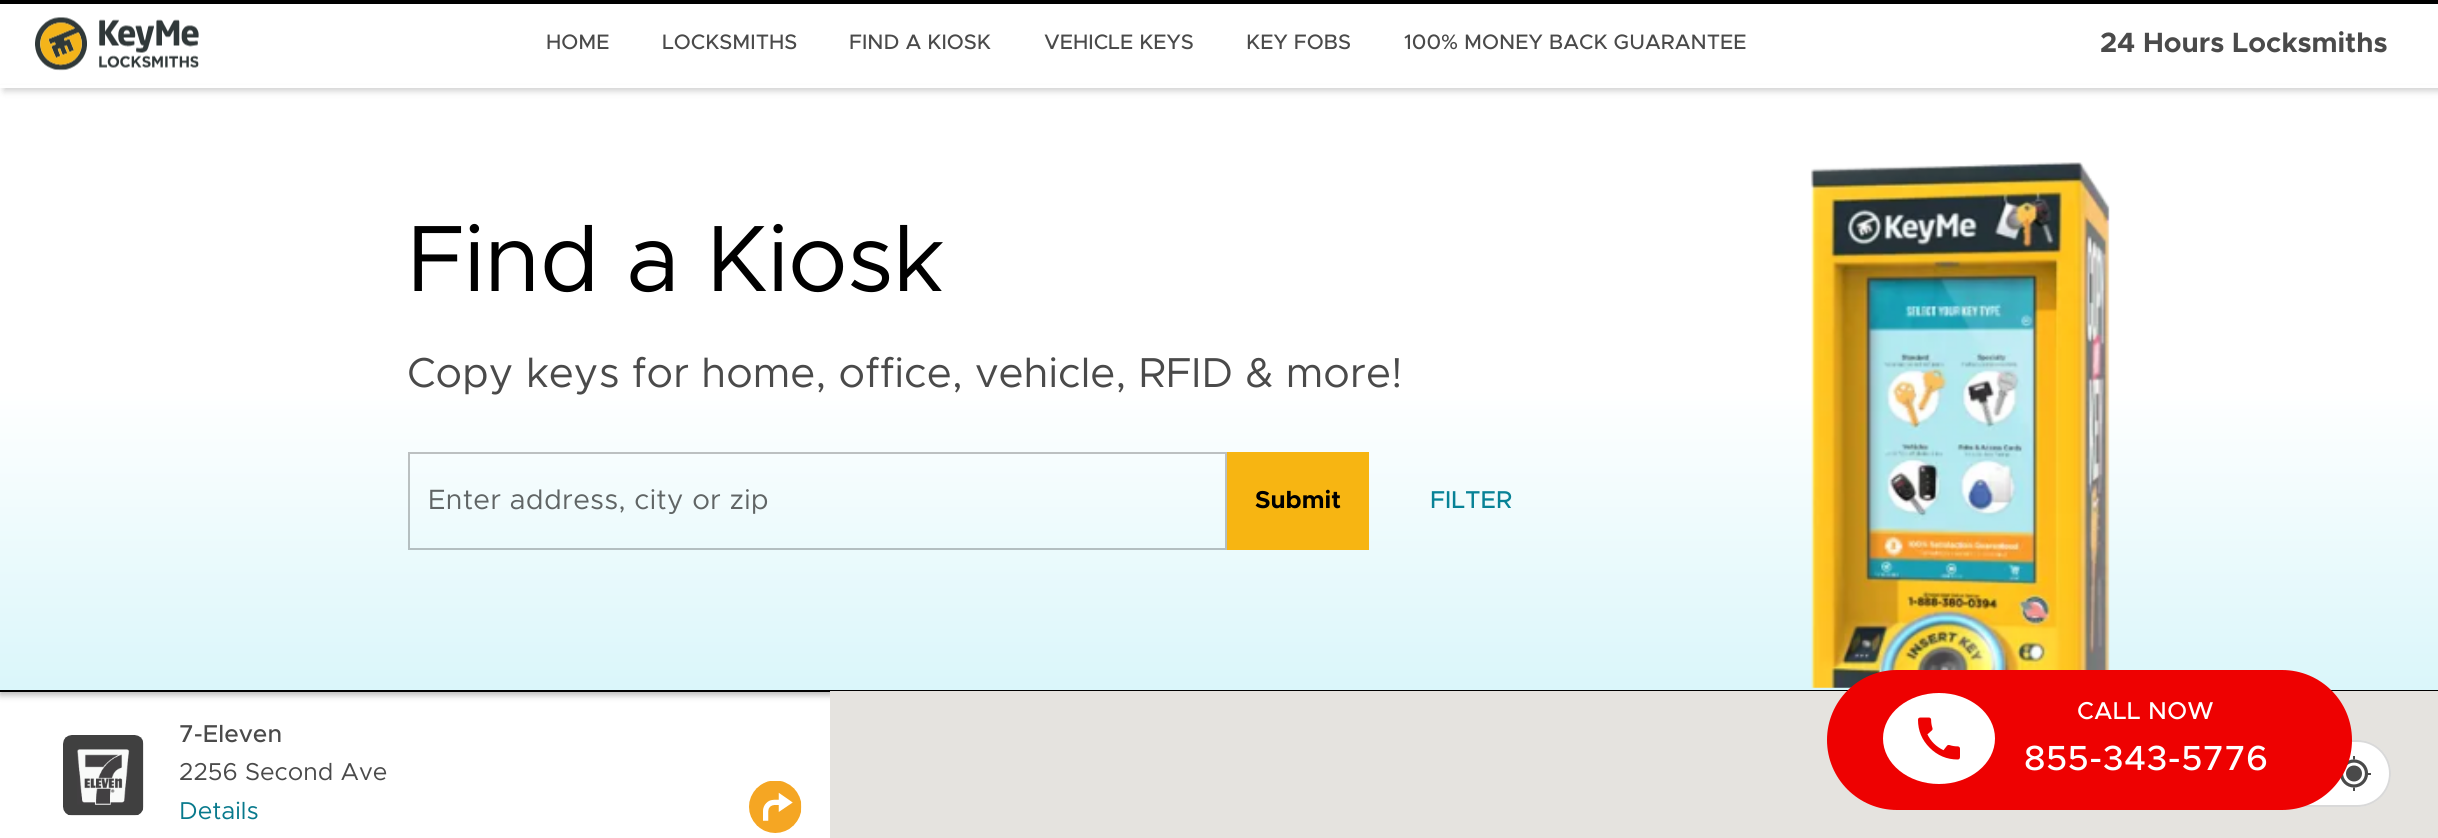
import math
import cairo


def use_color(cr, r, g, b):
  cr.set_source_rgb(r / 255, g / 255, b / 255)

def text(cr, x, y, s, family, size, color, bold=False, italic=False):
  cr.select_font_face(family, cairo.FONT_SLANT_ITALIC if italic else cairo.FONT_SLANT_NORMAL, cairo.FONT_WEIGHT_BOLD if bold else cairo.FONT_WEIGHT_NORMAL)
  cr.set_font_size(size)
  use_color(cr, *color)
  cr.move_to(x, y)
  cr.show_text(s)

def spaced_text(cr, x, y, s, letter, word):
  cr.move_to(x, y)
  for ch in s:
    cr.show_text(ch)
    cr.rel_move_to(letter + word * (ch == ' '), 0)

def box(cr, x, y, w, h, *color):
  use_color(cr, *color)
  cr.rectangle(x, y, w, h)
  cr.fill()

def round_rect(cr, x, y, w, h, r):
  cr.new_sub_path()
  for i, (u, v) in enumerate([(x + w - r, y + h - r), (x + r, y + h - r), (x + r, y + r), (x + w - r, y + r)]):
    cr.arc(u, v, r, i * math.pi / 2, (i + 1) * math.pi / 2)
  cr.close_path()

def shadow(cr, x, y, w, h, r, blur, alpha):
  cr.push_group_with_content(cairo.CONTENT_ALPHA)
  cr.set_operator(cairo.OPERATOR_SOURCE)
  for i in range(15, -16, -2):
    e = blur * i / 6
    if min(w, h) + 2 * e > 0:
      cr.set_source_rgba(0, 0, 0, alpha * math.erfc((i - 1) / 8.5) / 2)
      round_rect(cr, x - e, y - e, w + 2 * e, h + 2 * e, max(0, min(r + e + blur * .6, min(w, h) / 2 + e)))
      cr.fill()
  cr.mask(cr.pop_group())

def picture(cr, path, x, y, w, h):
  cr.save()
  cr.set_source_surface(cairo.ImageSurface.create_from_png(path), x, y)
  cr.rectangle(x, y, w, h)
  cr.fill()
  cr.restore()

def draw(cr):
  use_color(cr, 255, 255, 255)
  cr.paint()
  use_color(cr, 0, 0, 0)
  shadow(cr, 0, 91, 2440, 604, 0, 3.5, 0.3)
  box(cr, 0, 85, 2438, 3, 255, 255, 255)
  gradient = cairo.LinearGradient(1220, 87, 1220, 690)
  gradient.add_color_stop_rgba(0, 1, 1, 1, 1)
  gradient.add_color_stop_rgba(0.5, 1, 1, 1, 1)
  gradient.add_color_stop_rgba(1, 0.855, 0.965, 0.98, 1)
  cr.set_source(gradient)
  cr.rectangle(0, 88, 2438, 602)
  cr.fill()
  cr.save()
  cr.set_fill_rule(cairo.FILL_RULE_EVEN_ODD)
  cr.new_path()
  cr.move_to(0, 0)
  cr.line_to(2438, 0)
  cr.line_to(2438, 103)
  cr.line_to(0, 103)
  cr.close_path()
  cr.move_to(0, 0)
  cr.line_to(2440, 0)
  cr.line_to(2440, 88)
  cr.line_to(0, 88)
  cr.close_path()
  cr.clip()
  use_color(cr, 0, 0, 0)
  shadow(cr, 4, 4, 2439, 87, 0, 3.5, 0.19)
  cr.restore()
  box(cr, 0, 0, 2438, 4, 0, 0, 0)
  picture(cr, "img_01.png", 35, 17, 164, 54)
  box(cr, 0, 690, 2438, 2, 0, 0, 0)
  cr.rectangle(409, 453, 817, 96)
  cr.set_source_rgba(0, 0, 0, 0.24)
  cr.stroke()
  box(cr, 1227, 452, 142, 98, 247, 181, 18)
  picture(cr, "img_02.png", 1810, 162, 300, 526)
  picture(cr, "img_03.png", 63, 735, 81, 81)
  picture(cr, "img_04.png", 749, 781, 53, 52)
  box(cr, 830, 691, 1608, 147, 229, 227, 223)
  use_color(cr, 255, 255, 255)
  round_rect(cr, 2093, 740, 298, 67, 33.5)
  cr.fill()
  round_rect(cr, 2094, 741, 296, 65, 32.5)
  cr.set_source_rgba(0.592, 0.592, 0.592, 0.36)
  cr.stroke()
  box(cr, 2353, 756, 2, 35, 74, 74, 74)
  box(cr, 2367, 773, 4, 2, 74, 74, 74)
  use_color(cr, 255, 255, 255)
  cr.arc(2354, 773.5, 14, 0, 2 * math.pi)
  cr.fill()
  cr.arc(2354, 773.5, 12.5, 0, 2 * math.pi)
  use_color(cr, 74, 74, 74)
  cr.set_line_width(3.2)
  cr.stroke()
  cr.arc(2354, 773.5, 8, 0, 2 * math.pi)
  cr.fill()
  use_color(cr, 238, 1, 1)
  round_rect(cr, 1827, 670, 525, 140, 70)
  cr.fill()
  use_color(cr, 255, 255, 255)
  cr.new_path()
  cr.move_to(1939, 693)
  cr.curve_to(1970, 693, 1995, 713.5, 1995, 738.5)
  cr.curve_to(1995, 763.5, 1970, 784, 1939, 784)
  cr.curve_to(1908, 784, 1883, 763.5, 1883, 738.5)
  cr.curve_to(1883, 713.5, 1908, 693, 1939, 693)
  cr.close_path()
  cr.fill()
  picture(cr, "img_05.png", 1918, 717, 42, 43)
  text(cr, 546, 49, "HOME", "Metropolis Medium", 21, (74, 74, 74))
  text(cr, 662, 49, "LOCKSMITHS", "Metropolis Medium", 21, (74, 74, 74))
  text(cr, 849, 49, "FIND A KIOSK", "Metropolis Medium", 21, (74, 74, 74))
  text(cr, 1044, 49, "VEHICLE KEYS", "Metropolis Medium", 21, (74, 74, 74))
  text(cr, 1246, 49, "KEY FOBS", "Metropolis Medium", 21, (74, 74, 74))
  text(cr, 1404, 49, "100% MONEY BACK GUARANTEE", "Metropolis Medium", 21, (74, 74, 74))
  text(cr, 2100, 52, "24 Hours Locksmiths", "Metropolis", 28, (74, 74, 74), bold=True)
  cr.select_font_face("Metropolis")
  cr.set_font_size(94.5)
  use_color(cr, 0, 0, 0)
  spaced_text(cr, 407, 291, "Find a Kiosk", -0.75, 0)
  text(cr, 407, 387, "Copy keys for home, office, vehicle, RFID & more!", "Metropolis", 42, (74, 74, 74))
  cr.set_font_size(28)
  use_color(cr, 96, 101, 101)
  spaced_text(cr, 428, 509, "Enter address, city or zip", 0.25, 0)
  text(cr, 1255, 508, "Submit", "Metropolis", 24.5, (0, 0, 0), bold=True)
  text(cr, 1430, 508, "FILTER", "Metropolis Medium", 24.5, (7, 130, 150))
  text(cr, 179, 742, "7-Eleven", "Metropolis Medium", 24.5, (74, 74, 74))
  text(cr, 179, 780, "2256 Second Ave", "Metropolis", 24.5, (74, 74, 74))
  text(cr, 179, 819, "Details", "Metropolis", 24.5, (7, 121, 140))
  cr.select_font_face("Metropolis Medium")
  use_color(cr, 255, 255, 255)
  spaced_text(cr, 2077, 719, "CALL NOW", 0.25, 0)
  cr.set_font_size(35)
  spaced_text(cr, 2024, 770, "855-343-5776", 0.5, 0)


surface = cairo.ImageSurface(cairo.FORMAT_RGB24, 2438, 838)
cr = cairo.Context(surface)
options = cairo.FontOptions()
options.set_hint_metrics(cairo.HINT_METRICS_OFF)
options.set_hint_style(cairo.HINT_STYLE_NONE)
cr.set_font_options(options)
cr.set_miter_limit(4)
draw(cr)
surface.write_to_png("out.png")
